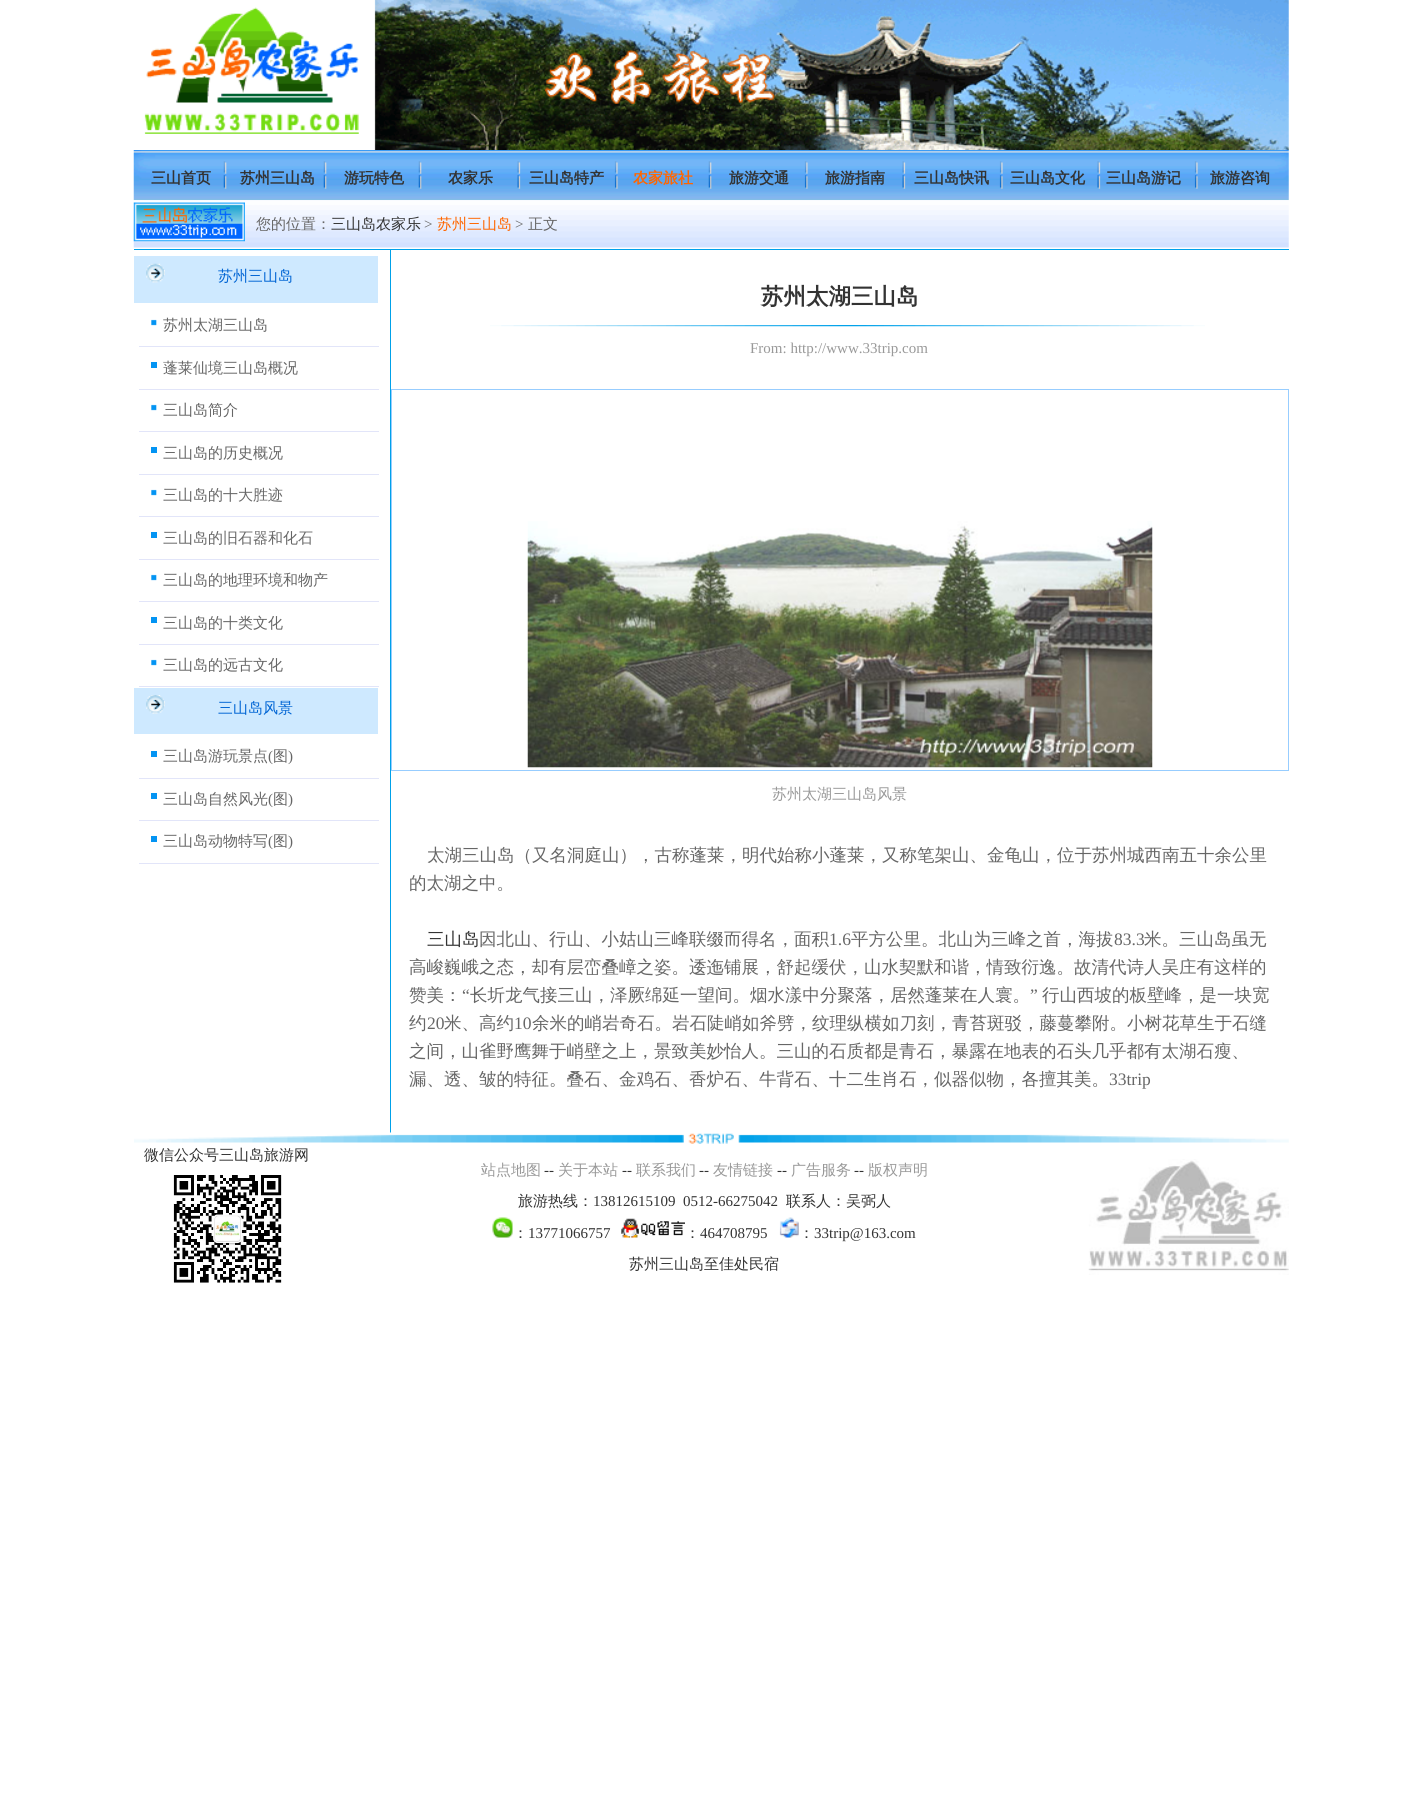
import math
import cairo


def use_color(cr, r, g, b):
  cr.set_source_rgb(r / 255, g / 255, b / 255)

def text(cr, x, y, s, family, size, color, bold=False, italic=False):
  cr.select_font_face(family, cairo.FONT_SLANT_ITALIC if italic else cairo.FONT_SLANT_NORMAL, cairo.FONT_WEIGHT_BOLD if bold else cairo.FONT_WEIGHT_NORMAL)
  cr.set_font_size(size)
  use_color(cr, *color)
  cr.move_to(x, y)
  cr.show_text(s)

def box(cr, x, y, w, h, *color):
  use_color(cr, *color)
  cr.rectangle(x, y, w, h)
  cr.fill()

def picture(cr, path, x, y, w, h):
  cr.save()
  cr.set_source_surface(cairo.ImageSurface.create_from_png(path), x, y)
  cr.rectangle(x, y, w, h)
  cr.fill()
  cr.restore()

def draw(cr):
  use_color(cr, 255, 255, 255)
  cr.paint()
  picture(cr, "img_01.png", 144, 0, 1145, 150)
  picture(cr, "img_02.png", 133, 150, 1156, 50)
  picture(cr, "img_03.png", 133, 200, 1156, 48)
  box(cr, 134, 249, 1155, 1, 0, 161, 233)
  picture(cr, "img_04.png", 133, 202, 112, 40)
  box(cr, 134, 256, 244, 47, 206, 233, 255)
  picture(cr, "img_05.png", 146, 263, 19, 20)
  picture(cr, "img_06.png", 151, 319, 6, 7)
  box(cr, 139, 346, 240, 1, 226, 229, 249)
  box(cr, 151, 362, 6, 6, 3, 148, 243)
  box(cr, 139, 389, 240, 1, 226, 229, 249)
  picture(cr, "img_06.png", 151, 404, 6, 7)
  box(cr, 139, 431, 240, 1, 226, 229, 249)
  box(cr, 151, 447, 6, 6, 3, 148, 243)
  box(cr, 139, 474, 240, 1, 226, 229, 249)
  picture(cr, "img_06.png", 151, 489, 6, 7)
  box(cr, 139, 516, 240, 1, 226, 229, 249)
  box(cr, 151, 532, 6, 6, 3, 148, 243)
  box(cr, 139, 559, 240, 1, 226, 229, 249)
  picture(cr, "img_06.png", 151, 574, 6, 7)
  box(cr, 139, 601, 240, 1, 226, 229, 249)
  box(cr, 151, 617, 6, 6, 3, 148, 243)
  box(cr, 139, 644, 240, 1, 226, 229, 249)
  picture(cr, "img_06.png", 151, 659, 6, 7)
  box(cr, 139, 686, 240, 1, 226, 229, 249)
  box(cr, 134, 688, 244, 46, 206, 233, 255)
  picture(cr, "img_07.png", 146, 695, 19, 19)
  box(cr, 151, 751, 6, 6, 3, 148, 243)
  box(cr, 139, 778, 240, 1, 226, 229, 249)
  box(cr, 151, 793, 6, 6, 3, 148, 243)
  box(cr, 139, 820, 240, 1, 226, 229, 249)
  box(cr, 151, 836, 6, 6, 3, 148, 243)
  box(cr, 139, 863, 240, 1, 226, 229, 249)
  box(cr, 390, 250, 1, 883, 0, 161, 233)
  picture(cr, "img_08.png", 490, 325, 715, 2)
  cr.rectangle(391.5, 389.5, 897, 381)
  use_color(cr, 151, 205, 255)
  cr.set_line_width(1)
  cr.stroke()
  picture(cr, "img_09.png", 527, 521, 626, 247)
  picture(cr, "img_10.png", 134, 1132, 1155, 12)
  picture(cr, "img_11.png", 173, 1175, 109, 108)
  picture(cr, "img_12.png", 492, 1217, 21, 21)
  picture(cr, "img_13.png", 621, 1218, 64, 20)
  picture(cr, "img_14.png", 779, 1217, 20, 21)
  picture(cr, "img_15.png", 1088, 1159, 201, 116)
  text(cr, 151, 183, "三山首页", "WenQuanYi Zen Hei", 15, (51, 51, 51), bold=True)
  text(cr, 240, 183, "苏州三山岛", "WenQuanYi Zen Hei", 15, (51, 51, 51), bold=True)
  text(cr, 344, 183, "游玩特色", "WenQuanYi Zen Hei", 15, (51, 51, 51), bold=True)
  text(cr, 448, 183, "农家乐", "WenQuanYi Zen Hei", 15, (51, 51, 51), bold=True)
  text(cr, 529, 183, "三山岛特产", "WenQuanYi Zen Hei", 15, (51, 51, 51), bold=True)
  text(cr, 633, 183, "农家旅社", "WenQuanYi Zen Hei", 15, (255, 102, 0), bold=True)
  text(cr, 729, 183, "旅游交通", "WenQuanYi Zen Hei", 15, (51, 51, 51), bold=True)
  text(cr, 825, 183, "旅游指南", "WenQuanYi Zen Hei", 15, (51, 51, 51), bold=True)
  text(cr, 914, 183, "三山岛快讯", "WenQuanYi Zen Hei", 15, (51, 51, 51), bold=True)
  text(cr, 1010, 183, "三山岛文化", "WenQuanYi Zen Hei", 15, (51, 51, 51), bold=True)
  text(cr, 1106, 183, "三山岛游记", "WenQuanYi Zen Hei", 15, (51, 51, 51), bold=True)
  text(cr, 1210, 183, "旅游咨询", "WenQuanYi Zen Hei", 15, (51, 51, 51), bold=True)
  text(cr, 256, 229, "您的位置：", "WenQuanYi Zen Hei Medium", 15, (102, 102, 102))
  text(cr, 331, 229, "三山岛农家乐", "WenQuanYi Zen Hei Medium", 15, (51, 51, 51))
  text(cr, 424, 229, ">", "Liberation Serif", 15, (102, 102, 102))
  text(cr, 437, 229, "苏州三山岛", "WenQuanYi Zen Hei Medium", 15, (255, 102, 0))
  text(cr, 515, 229, ">", "Liberation Serif", 15, (102, 102, 102))
  text(cr, 528, 229, "正文", "WenQuanYi Zen Hei Medium", 15, (102, 102, 102))
  text(cr, 218, 281, "苏州三山岛", "WenQuanYi Zen Hei Medium", 15, (1, 101, 212))
  text(cr, 163, 330, "苏州太湖三山岛", "WenQuanYi Zen Hei Medium", 15, (102, 102, 102))
  text(cr, 163, 373, "蓬莱仙境三山岛概况", "WenQuanYi Zen Hei Medium", 15, (102, 102, 102))
  text(cr, 163, 415, "三山岛简介", "WenQuanYi Zen Hei Medium", 15, (102, 102, 102))
  text(cr, 163, 458, "三山岛的历史概况", "WenQuanYi Zen Hei Medium", 15, (102, 102, 102))
  text(cr, 163, 500, "三山岛的十大胜迹", "WenQuanYi Zen Hei Medium", 15, (102, 102, 102))
  text(cr, 163, 543, "三山岛的旧石器和化石", "WenQuanYi Zen Hei Medium", 15, (102, 102, 102))
  text(cr, 163, 585, "三山岛的地理环境和物产", "WenQuanYi Zen Hei Medium", 15, (102, 102, 102))
  text(cr, 163, 628, "三山岛的十类文化", "WenQuanYi Zen Hei Medium", 15, (102, 102, 102))
  text(cr, 163, 670, "三山岛的远古文化", "WenQuanYi Zen Hei Medium", 15, (102, 102, 102))
  text(cr, 218, 713, "三山岛风景", "WenQuanYi Zen Hei Medium", 15, (1, 101, 212))
  text(cr, 163, 761, "三山岛游玩景点", "WenQuanYi Zen Hei Medium", 15, (102, 102, 102))
  text(cr, 268, 761, "(", "Liberation Serif", 15, (102, 102, 102))
  text(cr, 273, 761, "图", "WenQuanYi Zen Hei Medium", 15, (102, 102, 102))
  text(cr, 288, 761, ")", "Liberation Serif", 15, (102, 102, 102))
  text(cr, 163, 804, "三山岛自然风光", "WenQuanYi Zen Hei Medium", 15, (102, 102, 102))
  text(cr, 268, 804, "(", "Liberation Serif", 15, (102, 102, 102))
  text(cr, 273, 804, "图", "WenQuanYi Zen Hei Medium", 15, (102, 102, 102))
  text(cr, 288, 804, ")", "Liberation Serif", 15, (102, 102, 102))
  text(cr, 163, 846, "三山岛动物特写", "WenQuanYi Zen Hei Medium", 15, (102, 102, 102))
  text(cr, 268, 846, "(", "Liberation Serif", 15, (102, 102, 102))
  text(cr, 273, 846, "图", "WenQuanYi Zen Hei Medium", 15, (102, 102, 102))
  text(cr, 288, 846, ")", "Liberation Serif", 15, (102, 102, 102))
  text(cr, 761, 304, "苏州太湖三山岛", "WenQuanYi Zen Hei", 22.5, (51, 51, 51), bold=True)
  text(cr, 750, 353, "From: http://www.33trip.com", "Liberation Serif", 15, (153, 153, 153))
  text(cr, 772, 799, "苏州太湖三山岛风景", "WenQuanYi Zen Hei Medium", 15, (153, 153, 153))
  text(cr, 427, 861, "太湖三山岛（又名洞庭山），古称蓬莱，明代始称小蓬莱，又称笔架山、金龟山，位于苏州城西南五十余公里", "WenQuanYi Zen Hei Medium", 17.5, (102, 102, 102))
  text(cr, 409, 889, "的太湖之中。", "WenQuanYi Zen Hei Medium", 17.5, (102, 102, 102))
  text(cr, 427, 945, "三山岛", "WenQuanYi Zen Hei Medium", 17.5, (51, 51, 51))
  text(cr, 479, 945, "因北山、行山、小姑山三峰联缀而得名，面积", "WenQuanYi Zen Hei Medium", 17.5, (102, 102, 102))
  text(cr, 829, 945, "1.6", "Liberation Serif", 17.5, (102, 102, 102))
  text(cr, 851, 945, "平方公里。北山为三峰之首，海拔", "WenQuanYi Zen Hei Medium", 17.5, (102, 102, 102))
  text(cr, 1114, 945, "83.3", "Liberation Serif", 17.5, (102, 102, 102))
  text(cr, 1144, 945, "米。三山岛虽无", "WenQuanYi Zen Hei Medium", 17.5, (102, 102, 102))
  text(cr, 409, 973, "高峻巍峨之态，却有层峦叠嶂之姿。逶迤铺展，舒起缓伏，山水契默和谐，情致衍逸。故清代诗人吴庄有这样的", "WenQuanYi Zen Hei Medium", 17.5, (102, 102, 102))
  text(cr, 409, 1001, "赞美：", "WenQuanYi Zen Hei Medium", 17.5, (102, 102, 102))
  text(cr, 462, 1001, "“", "Liberation Serif", 17.5, (102, 102, 102))
  text(cr, 470, 1001, "长圻龙气接三山，泽厥绵延一望间。烟水漾中分聚落，居然蓬莱在人寰。", "WenQuanYi Zen Hei Medium", 17.5, (102, 102, 102))
  text(cr, 1030, 1001, "”", "Liberation Serif", 17.5, (102, 102, 102))
  text(cr, 1042, 1001, "行山西坡的板壁峰，是一块宽", "WenQuanYi Zen Hei Medium", 17.5, (102, 102, 102))
  text(cr, 409, 1029, "约", "WenQuanYi Zen Hei Medium", 17.5, (102, 102, 102))
  text(cr, 427, 1029, "20", "Liberation Serif", 17.5, (102, 102, 102))
  text(cr, 444, 1029, "米、高约", "WenQuanYi Zen Hei Medium", 17.5, (102, 102, 102))
  text(cr, 514, 1029, "10", "Liberation Serif", 17.5, (102, 102, 102))
  text(cr, 532, 1029, "余米的峭岩奇石。岩石陡峭如斧劈，纹理纵横如刀刻，青苔斑驳，藤蔓攀附。小树花草生于石缝", "WenQuanYi Zen Hei Medium", 17.5, (102, 102, 102))
  text(cr, 409, 1057, "之间，山雀野鹰舞于峭壁之上，景致美妙怡人。三山的石质都是青石，暴露在地表的石头几乎都有太湖石瘦、", "WenQuanYi Zen Hei Medium", 17.5, (102, 102, 102))
  text(cr, 409, 1085, "漏、透、皱的特征。叠石、金鸡石、香炉石、牛背石、十二生肖石，似器似物，各擅其美。", "WenQuanYi Zen Hei Medium", 17.5, (102, 102, 102))
  text(cr, 1109, 1085, "33trip", "Liberation Serif", 17.5, (102, 102, 102))
  text(cr, 144, 1160, "微信公众号三山岛旅游网", "WenQuanYi Zen Hei Medium", 15, (51, 51, 51))
  text(cr, 481, 1175, "站点地图", "WenQuanYi Zen Hei Medium", 15, (153, 153, 153))
  text(cr, 544, 1175, "--", "Liberation Serif", 15, (51, 51, 51))
  text(cr, 558, 1175, "关于本站", "WenQuanYi Zen Hei Medium", 15, (153, 153, 153))
  text(cr, 622, 1175, "--", "Liberation Serif", 15, (51, 51, 51))
  text(cr, 636, 1175, "联系我们", "WenQuanYi Zen Hei Medium", 15, (153, 153, 153))
  text(cr, 699, 1175, "--", "Liberation Serif", 15, (51, 51, 51))
  text(cr, 713, 1175, "友情链接", "WenQuanYi Zen Hei Medium", 15, (153, 153, 153))
  text(cr, 777, 1175, "--", "Liberation Serif", 15, (51, 51, 51))
  text(cr, 791, 1175, "广告服务", "WenQuanYi Zen Hei Medium", 15, (153, 153, 153))
  text(cr, 854, 1175, "--", "Liberation Serif", 15, (51, 51, 51))
  text(cr, 868, 1175, "版权声明", "WenQuanYi Zen Hei Medium", 15, (153, 153, 153))
  text(cr, 518, 1206, "旅游热线：", "WenQuanYi Zen Hei Medium", 15, (51, 51, 51))
  text(cr, 593, 1206, "13812615109  0512-66275042", "Liberation Serif", 15, (51, 51, 51))
  text(cr, 786, 1206, "联系人：吴弼人", "WenQuanYi Zen Hei Medium", 15, (51, 51, 51))
  text(cr, 513, 1238, "：", "WenQuanYi Zen Hei Medium", 15, (51, 51, 51))
  text(cr, 528, 1238, "13771066757", "Liberation Serif", 15, (51, 51, 51))
  text(cr, 685, 1238, "：", "WenQuanYi Zen Hei Medium", 15, (51, 51, 51))
  text(cr, 700, 1238, "464708795", "Liberation Serif", 15, (51, 51, 51))
  text(cr, 799, 1238, "：", "WenQuanYi Zen Hei Medium", 15, (51, 51, 51))
  text(cr, 814, 1238, "33trip@163.com", "Liberation Serif", 15, (51, 51, 51))
  text(cr, 629, 1269, "苏州三山岛至佳处民宿", "WenQuanYi Zen Hei Medium", 15, (51, 51, 51))


surface = cairo.ImageSurface(cairo.FORMAT_RGB24, 1421, 1799)
cr = cairo.Context(surface)
options = cairo.FontOptions()
options.set_hint_metrics(cairo.HINT_METRICS_OFF)
options.set_hint_style(cairo.HINT_STYLE_NONE)
cr.set_font_options(options)
cr.set_miter_limit(4)
draw(cr)
surface.write_to_png("out.png")
